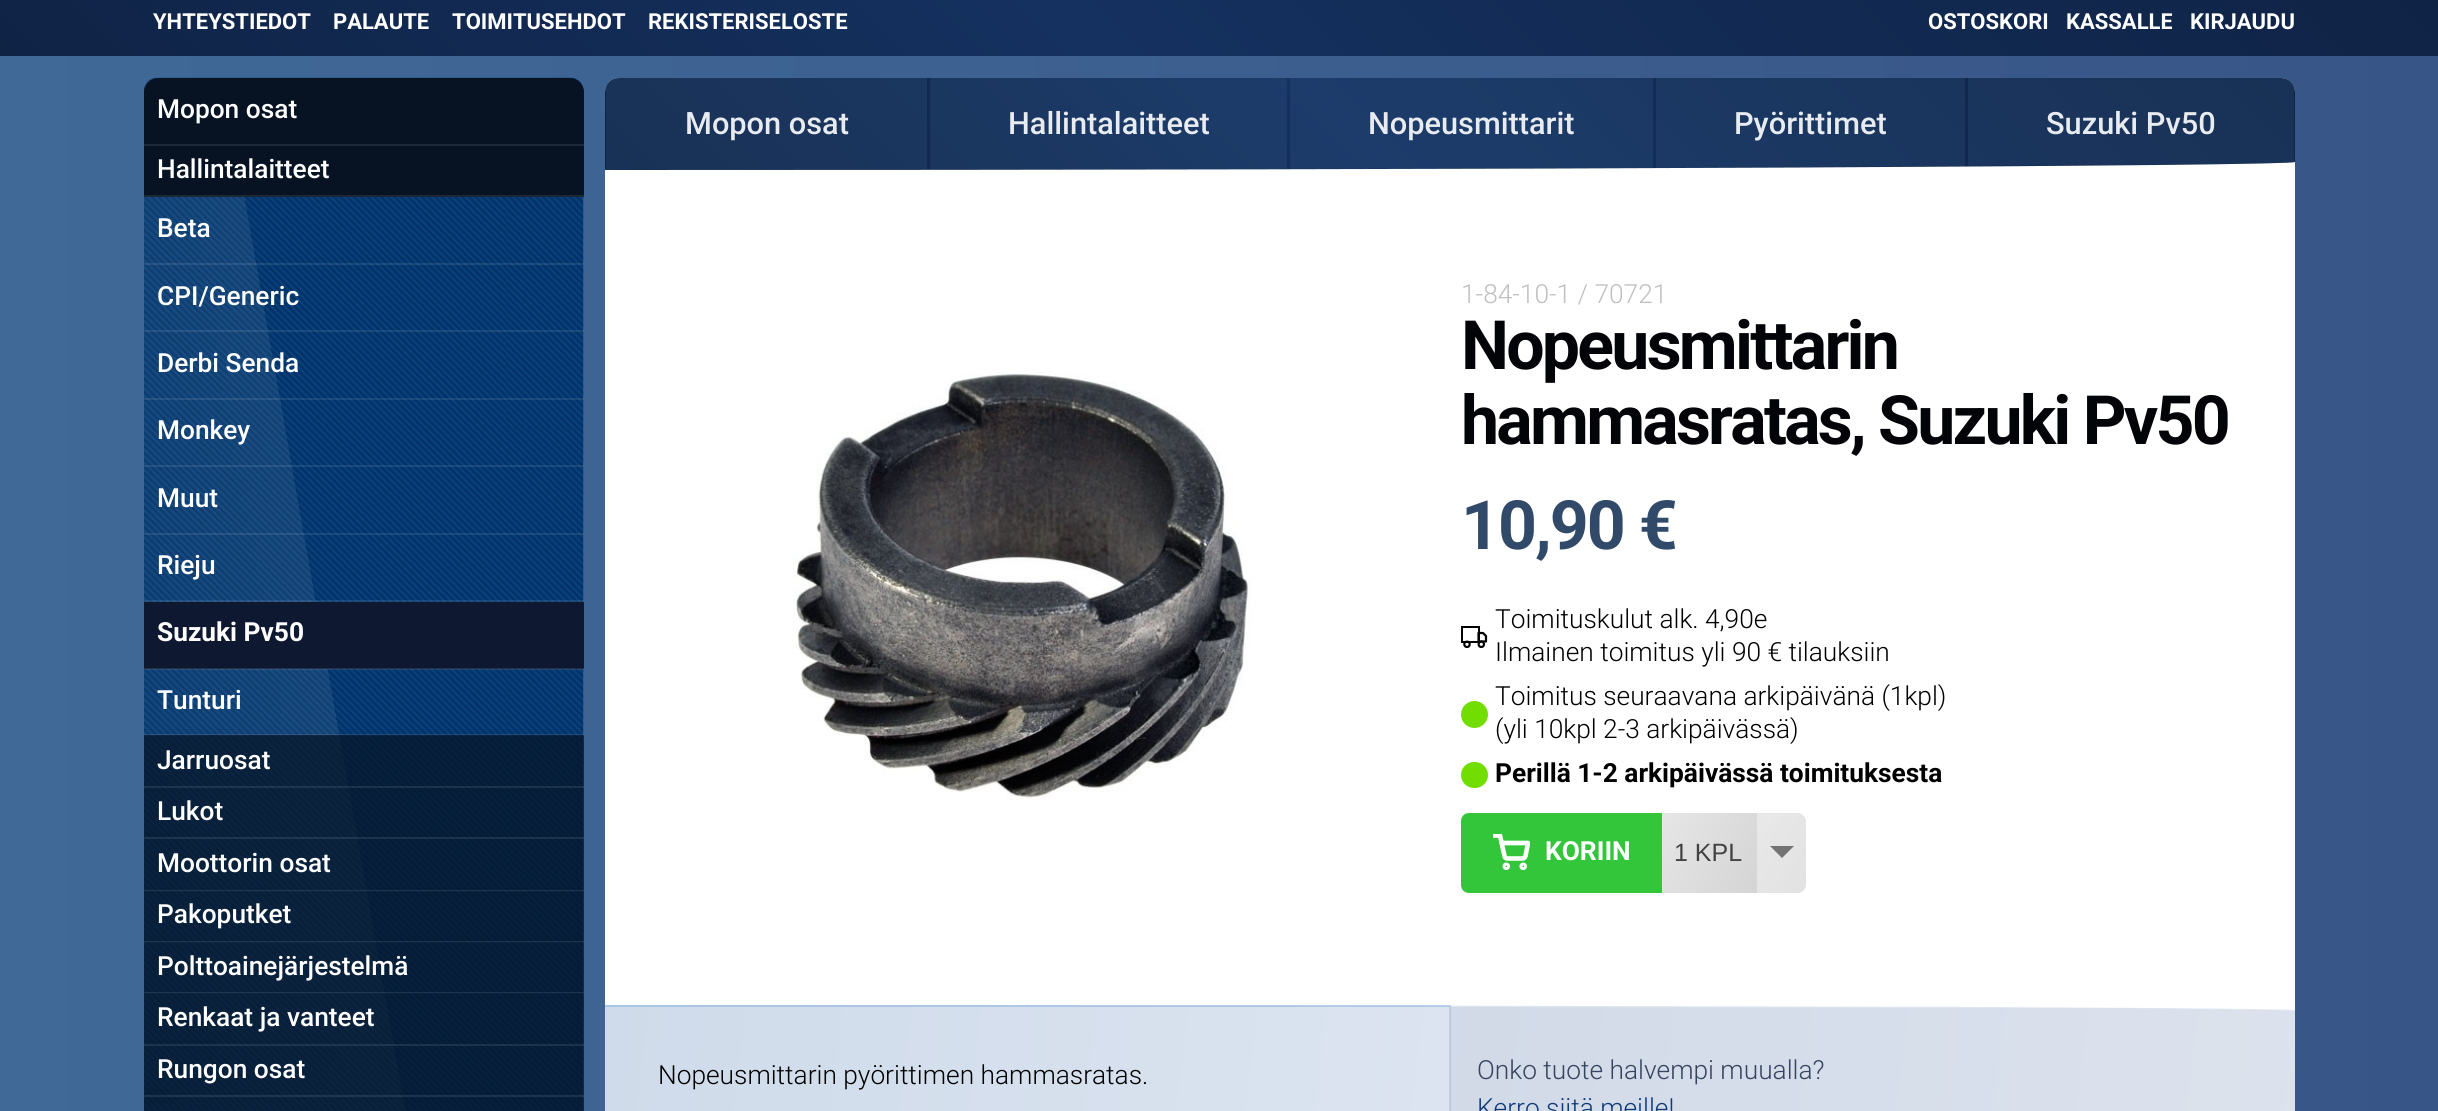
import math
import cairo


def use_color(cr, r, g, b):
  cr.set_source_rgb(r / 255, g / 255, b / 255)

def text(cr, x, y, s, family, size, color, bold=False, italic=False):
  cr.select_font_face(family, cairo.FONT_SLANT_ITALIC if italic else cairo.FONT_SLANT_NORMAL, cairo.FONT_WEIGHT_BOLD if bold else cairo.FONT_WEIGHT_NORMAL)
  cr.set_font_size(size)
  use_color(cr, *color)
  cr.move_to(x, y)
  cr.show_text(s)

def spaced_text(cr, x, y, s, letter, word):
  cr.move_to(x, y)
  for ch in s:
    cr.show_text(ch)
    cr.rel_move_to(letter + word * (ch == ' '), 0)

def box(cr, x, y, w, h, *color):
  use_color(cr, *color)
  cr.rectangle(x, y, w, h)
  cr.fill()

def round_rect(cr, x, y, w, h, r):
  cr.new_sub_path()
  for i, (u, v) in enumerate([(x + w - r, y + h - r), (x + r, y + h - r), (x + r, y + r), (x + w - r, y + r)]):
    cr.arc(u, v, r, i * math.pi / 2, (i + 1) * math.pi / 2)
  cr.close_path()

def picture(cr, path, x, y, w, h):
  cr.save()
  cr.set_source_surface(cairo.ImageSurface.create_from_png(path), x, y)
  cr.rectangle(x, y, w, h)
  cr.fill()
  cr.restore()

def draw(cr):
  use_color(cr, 255, 255, 255)
  cr.paint()
  gradient = cairo.LinearGradient(0, 992, 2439, 992)
  gradient.add_color_stop_rgba(0, 0.251, 0.412, 0.592, 1)
  gradient.add_color_stop_rgba(1, 0.22, 0.333, 0.529, 1)
  cr.set_source(gradient)
  cr.rectangle(0, 56, 2438, 1055)
  cr.fill()
  gradient = cairo.LinearGradient(593, 649, 1846, -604)
  gradient.add_color_stop_rgba(0, 0.059, 0.137, 0.271, 1)
  gradient.add_color_stop_rgba(0.44, 0.082, 0.192, 0.376, 1)
  gradient.add_color_stop_rgba(1, 0.059, 0.137, 0.271, 1)
  cr.set_source(gradient)
  cr.rectangle(0, 0, 2438, 56)
  cr.fill()
  picture(cr, "img_01.png", 144, 77, 440, 1034)
  use_color(cr, 7, 19, 35)
  cr.new_path()
  cr.move_to(158, 78)
  cr.line_to(570, 78)
  cr.curve_to(577.5, 78, 584, 84.5, 584, 92)
  cr.line_to(584, 146)
  cr.line_to(144, 146)
  cr.line_to(144, 92)
  cr.curve_to(144, 84.5, 150.5, 78, 158, 78)
  cr.close_path()
  cr.fill()
  box(cr, 144, 144, 440, 2, 29, 40, 55)
  box(cr, 144, 146, 440, 49, 7, 19, 35)
  box(cr, 144, 195, 440, 2, 29, 40, 55)
  cr.set_source_rgba(1, 1, 1, 0.09)
  cr.rectangle(144, 263, 440, 2)
  cr.fill()
  cr.rectangle(144, 330, 440, 2)
  cr.fill()
  cr.rectangle(144, 398, 440, 2)
  cr.fill()
  cr.rectangle(144, 465, 440, 2)
  cr.fill()
  cr.rectangle(144, 533, 440, 2)
  cr.fill()
  cr.rectangle(144, 600, 440, 2)
  cr.fill()
  box(cr, 144, 602, 440, 67, 14, 25, 49)
  cr.set_source_rgba(1, 1, 1, 0.09)
  cr.rectangle(144, 668, 440, 2)
  cr.fill()
  cr.rectangle(144, 734, 440, 2)
  cr.fill()
  cr.set_source_rgba(0.027, 0.075, 0.137, 0.7)
  cr.rectangle(144, 735, 440, 53)
  cr.fill()
  cr.set_source_rgba(1, 1, 1, 0.09)
  cr.rectangle(144, 786, 440, 2)
  cr.fill()
  cr.set_source_rgba(0.027, 0.075, 0.137, 0.7)
  cr.rectangle(144, 788, 440, 51)
  cr.fill()
  cr.set_source_rgba(1, 1, 1, 0.09)
  cr.rectangle(144, 837, 440, 2)
  cr.fill()
  cr.set_source_rgba(0.027, 0.075, 0.137, 0.7)
  cr.rectangle(144, 839, 440, 52)
  cr.fill()
  cr.set_source_rgba(1, 1, 1, 0.09)
  cr.rectangle(144, 890, 440, 2)
  cr.fill()
  cr.set_source_rgba(0.027, 0.075, 0.137, 0.7)
  cr.rectangle(144, 891, 440, 51)
  cr.fill()
  cr.set_source_rgba(1, 1, 1, 0.09)
  cr.rectangle(144, 941, 440, 2)
  cr.fill()
  cr.set_source_rgba(0.027, 0.075, 0.137, 0.7)
  cr.rectangle(144, 942, 440, 51)
  cr.fill()
  cr.set_source_rgba(1, 1, 1, 0.09)
  cr.rectangle(144, 992, 440, 2)
  cr.fill()
  cr.set_source_rgba(0.027, 0.075, 0.137, 0.7)
  cr.rectangle(144, 993, 440, 53)
  cr.fill()
  cr.set_source_rgba(1, 1, 1, 0.09)
  cr.rectangle(144, 1044, 440, 2)
  cr.fill()
  cr.set_source_rgba(0.027, 0.075, 0.137, 0.7)
  cr.rectangle(144, 1046, 440, 51)
  cr.fill()
  cr.set_source_rgba(1, 1, 1, 0.09)
  cr.rectangle(144, 1095, 440, 2)
  cr.fill()
  cr.set_source_rgba(0.027, 0.075, 0.137, 0.7)
  cr.rectangle(144, 1097, 440, 14)
  cr.fill()
  use_color(cr, 255, 255, 255)
  round_rect(cr, 605, 78, 1690, 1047, 14)
  cr.fill()
  gradient = cairo.LinearGradient(1004, 569, 1895, -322)
  gradient.add_color_stop_rgba(0, 0.059, 0.137, 0.271, 1)
  gradient.add_color_stop_rgba(0.44, 0.082, 0.192, 0.376, 1)
  gradient.add_color_stop_rgba(1, 0.059, 0.137, 0.271, 1)
  cr.set_source(gradient)
  cr.new_path()
  cr.move_to(619, 78)
  cr.curve_to(611, 78, 605, 84, 605, 92)
  cr.line_to(605, 170)
  cr.curve_to(1539, 170, 2295, 166, 2295, 162)
  cr.line_to(2295, 92)
  cr.curve_to(2295, 84, 2289, 78, 2281, 78)
  cr.close_path()
  cr.fill()
  cr.set_source_rgba(0.251, 0.412, 0.592, 0.2)
  cr.new_path()
  cr.move_to(619, 78)
  cr.line_to(927, 78)
  cr.line_to(927, 169)
  cr.line_to(606, 170)
  cr.line_to(606, 87)
  cr.curve_to(608, 82, 613, 78, 619, 78)
  cr.close_path()
  cr.fill()
  cr.rectangle(930, 78, 357, 91)
  cr.fill()
  cr.new_path()
  cr.move_to(1290, 78)
  cr.line_to(1653, 78)
  cr.line_to(1653, 168)
  cr.line_to(1290, 169)
  cr.close_path()
  cr.fill()
  cr.new_path()
  cr.move_to(1656, 78)
  cr.line_to(1965, 78)
  cr.line_to(1965, 166)
  cr.line_to(1656, 168)
  cr.close_path()
  cr.fill()
  cr.new_path()
  cr.move_to(1968, 78)
  cr.line_to(2281, 78)
  cr.curve_to(2287, 78, 2292, 82, 2294, 87)
  cr.line_to(2294, 162)
  cr.curve_to(2282, 164, 2163, 165, 1968, 166)
  cr.close_path()
  cr.fill()
  picture(cr, "img_02.png", 793, 373, 458, 427)
  cr.rectangle(1462, 627, 17, 15)
  use_color(cr, 0, 0, 0)
  cr.stroke()
  cr.new_path()
  cr.move_to(1478.5, 633)
  cr.line_to(1483, 633)
  cr.line_to(1486, 636)
  cr.line_to(1486, 641.5)
  cr.line_to(1478.5, 641.5)
  cr.close_path()
  cr.set_line_width(2.2)
  cr.set_line_cap(cairo.LINE_CAP_ROUND)
  cr.set_line_join(cairo.LINE_JOIN_ROUND)
  cr.stroke()
  cr.arc(1467, 644.3, 2.7, 0, 2 * math.pi)
  cr.set_line_cap(cairo.LINE_CAP_BUTT)
  cr.set_line_join(cairo.LINE_JOIN_MITER)
  cr.stroke()
  cr.arc(1481.3, 644.3, 2.7, 0, 2 * math.pi)
  cr.stroke()
  use_color(cr, 114, 221, 0)
  cr.arc(1474.5, 714.5, 13.5, 0, 2 * math.pi)
  cr.fill()
  round_rect(cr, 1461, 762, 27, 26, 13)
  cr.fill()
  use_color(cr, 51, 198, 59)
  cr.new_path()
  cr.move_to(1469, 813)
  cr.line_to(1662, 813)
  cr.line_to(1662, 893)
  cr.line_to(1469, 893)
  cr.curve_to(1464.5, 893, 1461, 889.5, 1461, 885)
  cr.line_to(1461, 821)
  cr.curve_to(1461, 816.5, 1464.5, 813, 1469, 813)
  cr.close_path()
  cr.fill()
  cr.arc(1506.3, 866.3, 1.5, 0, 2 * math.pi)
  use_color(cr, 255, 255, 255)
  cr.set_line_width(4.6)
  cr.stroke()
  cr.arc(1523.2, 866.3, 1.5, 0, 2 * math.pi)
  cr.stroke()
  cr.save()
  cr.rectangle(1493, 834, 37, 38)
  cr.clip()
  cr.new_path()
  cr.move_to(1494, 835.5)
  cr.line_to(1500, 835.5)
  cr.line_to(1504.5, 856)
  cr.curve_to(1504.5, 857.5, 1506, 858.5, 1507.5, 858.5)
  cr.line_to(1522.5, 858.5)
  cr.curve_to(1524, 858.5, 1525, 857.5, 1525.5, 856)
  cr.line_to(1528, 843)
  cr.line_to(1501.5, 843)
  cr.set_line_cap(cairo.LINE_CAP_ROUND)
  cr.set_line_join(cairo.LINE_JOIN_ROUND)
  cr.stroke()
  cr.restore()
  gradient = cairo.LinearGradient(1663, 812, 1805, 894)
  gradient.add_color_stop_rgba(0, 0.902, 0.902, 0.902, 1)
  gradient.add_color_stop_rgba(1, 0.808, 0.808, 0.808, 1)
  cr.set_source(gradient)
  cr.new_path()
  cr.move_to(1662, 813)
  cr.line_to(1797, 813)
  cr.curve_to(1802, 813, 1806, 817, 1806, 822)
  cr.line_to(1806, 884)
  cr.curve_to(1806, 889, 1802, 893, 1797, 893)
  cr.line_to(1662, 893)
  cr.close_path()
  cr.fill()
  cr.set_source_rgba(1, 1, 1, 0.4)
  cr.new_path()
  cr.move_to(1757, 813)
  cr.line_to(1797, 813)
  cr.curve_to(1802, 813, 1806, 817, 1806, 822)
  cr.line_to(1806, 884)
  cr.curve_to(1806, 889, 1802, 893, 1797, 893)
  cr.line_to(1757, 893)
  cr.close_path()
  cr.fill()
  use_color(cr, 115, 115, 115)
  cr.new_path()
  cr.move_to(1770, 846)
  cr.line_to(1794, 846)
  cr.line_to(1782, 858)
  cr.close_path()
  cr.fill()
  gradient = cairo.LinearGradient(598, 741, 2302, 950)
  gradient.add_color_stop_rgba(0, 0.812, 0.859, 0.918, 1)
  gradient.add_color_stop_rgba(1, 0.91, 0.929, 0.965, 1)
  cr.set_source(gradient)
  cr.new_path()
  cr.move_to(1996, 1007)
  cr.curve_to(1691, 1006, 1182, 1005, 605, 1005)
  cr.line_to(605, 1007)
  cr.close_path()
  cr.fill()
  gradient = cairo.LinearGradient(598, 1063, 2302, 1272)
  gradient.add_color_stop_rgba(0, 0.812, 0.859, 0.918, 1)
  gradient.add_color_stop_rgba(1, 0.91, 0.929, 0.965, 1)
  cr.set_source(gradient)
  cr.new_path()
  cr.move_to(605, 1007)
  cr.line_to(605, 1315)
  cr.curve_to(605, 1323, 611, 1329, 619, 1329)
  cr.line_to(2281, 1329)
  cr.curve_to(2289, 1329, 2295, 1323, 2295, 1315)
  cr.line_to(2295, 1010)
  cr.curve_to(2295, 1009, 2185, 1008, 1996, 1007)
  cr.close_path()
  cr.fill()
  cr.set_source_rgba(0.522, 0.678, 0.878, 0.5)
  cr.rectangle(605, 1005, 846, 2)
  cr.fill()
  box(cr, 1449, 1007, 2, 104, 199, 208, 222)
  cr.set_source_rgba(0.059, 0.118, 0.275, 0.05)
  cr.new_path()
  cr.move_to(2112, 1008)
  cr.line_to(1450, 1007)
  cr.line_to(1450, 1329)
  cr.line_to(2281, 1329)
  cr.curve_to(2289, 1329, 2295, 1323, 2295, 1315)
  cr.line_to(2295, 1011)
  cr.curve_to(2295, 1010, 2226, 1009, 2112, 1008)
  cr.close_path()
  cr.fill()
  text(cr, 153, 29, "YHTEYSTIEDOT", "Roboto", 22, (255, 255, 255), bold=True)
  text(cr, 333, 29, "PALAUTE", "Roboto", 22, (255, 255, 255), bold=True)
  text(cr, 452, 29, "TOIMITUSEHDOT", "Roboto", 22, (255, 255, 255), bold=True)
  text(cr, 648, 29, "REKISTERISELOSTE", "Roboto", 22, (255, 255, 255), bold=True)
  text(cr, 1928, 29, "OSTOSKORI", "Roboto", 22, (255, 255, 255), bold=True)
  text(cr, 2066, 29, "KASSALLE", "Roboto", 22, (255, 255, 255), bold=True)
  text(cr, 2190, 29, "KIRJAUDU", "Roboto", 22, (255, 255, 255), bold=True)
  text(cr, 157, 118, "Mopon osat", "Roboto Medium", 26.3, (255, 255, 255))
  text(cr, 157, 178, "Hallintalaitteet", "Roboto Medium", 26.3, (255, 255, 255))
  text(cr, 157, 237, "Beta", "Roboto Medium", 26.3, (255, 255, 255))
  text(cr, 157, 305, "CPI/Generic", "Roboto Medium", 26.3, (255, 255, 255))
  text(cr, 157, 372, "Derbi Senda", "Roboto Medium", 26.3, (255, 255, 255))
  text(cr, 157, 439, "Monkey", "Roboto Medium", 26.3, (255, 255, 255))
  text(cr, 157, 507, "Muut", "Roboto Medium", 26.3, (255, 255, 255))
  text(cr, 157, 574, "Rieju", "Roboto Medium", 26.3, (255, 255, 255))
  text(cr, 157, 641, "Suzuki Pv50", "Roboto", 26.3, (255, 255, 255), bold=True)
  text(cr, 157, 709, "Tunturi", "Roboto Medium", 26.3, (255, 255, 255))
  text(cr, 157, 769, "Jarruosat", "Roboto Medium", 26.3, (255, 255, 255))
  text(cr, 157, 820, "Lukot", "Roboto Medium", 26.3, (255, 255, 255))
  text(cr, 157, 872, "Moottorin osat", "Roboto Medium", 26.3, (255, 255, 255))
  text(cr, 157, 923, "Pakoputket", "Roboto Medium", 26.3, (255, 255, 255))
  text(cr, 157, 975, "Polttoainejärjestelmä", "Roboto Medium", 26.3, (255, 255, 255))
  text(cr, 157, 1026, "Renkaat ja vanteet", "Roboto Medium", 26.3, (255, 255, 255))
  text(cr, 157, 1078, "Rungon osat", "Roboto Medium", 26.3, (255, 255, 255))
  text(cr, 685, 134, "Mopon osat", "Roboto Medium", 30.75, (232, 235, 239))
  text(cr, 1008, 134, "Hallintalaitteet", "Roboto Medium", 30.75, (232, 235, 239))
  text(cr, 1368, 134, "Nopeusmittarit", "Roboto Medium", 30.75, (232, 235, 239))
  text(cr, 1734, 134, "Pyörittimet", "Roboto Medium", 30.75, (232, 235, 239))
  text(cr, 2046, 134, "Suzuki Pv50", "Roboto Medium", 30.75, (232, 235, 239))
  text(cr, 1461, 303, "1-84-10-1 / 70721", "Roboto Light", 26.3, (191, 191, 191))
  cr.select_font_face("Roboto", cairo.FONT_SLANT_NORMAL, cairo.FONT_WEIGHT_BOLD)
  cr.set_font_size(68)
  use_color(cr, 2, 4, 8)
  spaced_text(cr, 1461, 369, "Nopeusmittarin", -2.75, 0)
  spaced_text(cr, 1461, 444, "hammasratas, Suzuki Pv50", -2.75, 0)
  use_color(cr, 50, 74, 105)
  spaced_text(cr, 1461, 549, "10,90 €", -2, 0)
  text(cr, 1495, 628, "Toimituskulut alk. 4,90e", "Roboto Light", 26.3, (0, 0, 0))
  text(cr, 1495, 661, "Ilmainen toimitus yli 90 € tilauksiin", "Roboto Light", 26.3, (0, 0, 0))
  text(cr, 1495, 705, "Toimitus seuraavana arkipäivänä (1kpl)", "Roboto Light", 26.3, (0, 0, 0))
  text(cr, 1495, 738, "(yli 10kpl 2-3 arkipäivässä)", "Roboto Light", 26.3, (0, 0, 0))
  text(cr, 1495, 782, "Perillä 1-2 arkipäivässä toimituksesta", "Roboto", 26.3, (0, 0, 0), bold=True)
  text(cr, 1545, 860, "KORIIN", "Roboto", 26.3, (255, 255, 255), bold=True)
  text(cr, 1674, 861, "1 KPL", "Liberation Sans", 25, (66, 66, 66))
  text(cr, 658, 1084, "Nopeusmittarin pyörittimen hammasratas.", "Roboto Light", 26.3, (0, 0, 0))
  text(cr, 1477, 1079, "Onko tuote halvempi muualla?", "Roboto Light", 26.3, (54, 68, 95))
  text(cr, 1477, 1117, "Kerro siitä meille!", "Roboto Light", 26.3, (15, 60, 120))


surface = cairo.ImageSurface(cairo.FORMAT_RGB24, 2438, 1111)
cr = cairo.Context(surface)
options = cairo.FontOptions()
options.set_hint_metrics(cairo.HINT_METRICS_OFF)
options.set_hint_style(cairo.HINT_STYLE_NONE)
cr.set_font_options(options)
cr.set_miter_limit(4)
draw(cr)
surface.write_to_png("out.png")
